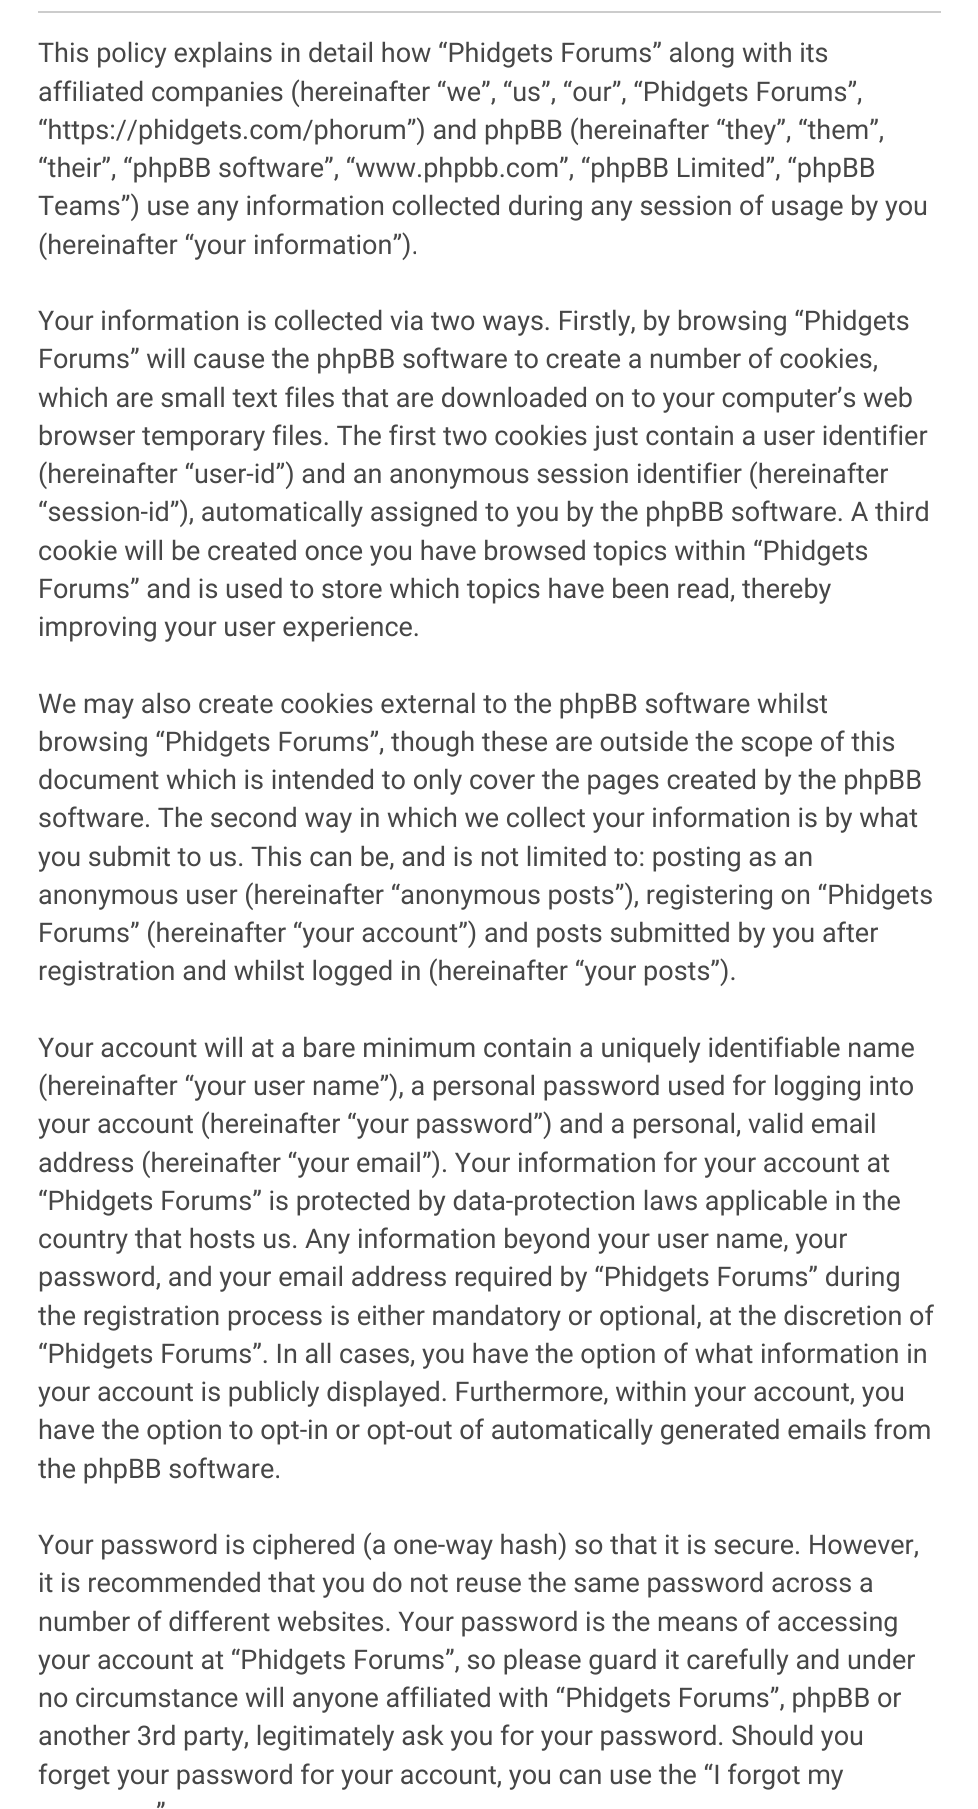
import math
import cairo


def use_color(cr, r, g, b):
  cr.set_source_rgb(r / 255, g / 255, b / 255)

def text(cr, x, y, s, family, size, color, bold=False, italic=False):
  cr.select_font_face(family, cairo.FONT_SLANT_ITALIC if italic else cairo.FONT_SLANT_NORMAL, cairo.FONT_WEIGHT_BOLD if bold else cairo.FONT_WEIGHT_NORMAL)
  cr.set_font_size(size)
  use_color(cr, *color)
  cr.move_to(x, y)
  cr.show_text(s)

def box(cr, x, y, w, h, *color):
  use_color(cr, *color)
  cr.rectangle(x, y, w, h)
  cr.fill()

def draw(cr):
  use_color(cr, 255, 255, 255)
  cr.paint()
  box(cr, 38, 11, 903, 2, 204, 204, 204)
  text(cr, 38, 62, "This policy explains in detail how “Phidgets Forums” along with its", "Roboto", 27, (71, 71, 71))
  text(cr, 38, 101, "affiliated companies (hereinafter “we”, “us”, “our”, “Phidgets Forums”,", "Roboto", 27, (71, 71, 71))
  text(cr, 38, 139, "“https://phidgets.com/phorum”) and phpBB (hereinafter “they”, “them”,", "Roboto", 27, (71, 71, 71))
  text(cr, 38, 177, "“their”, “phpBB software”, “www.phpbb.com”, “phpBB Limited”, “phpBB", "Roboto", 27, (71, 71, 71))
  text(cr, 38, 215, "Teams”) use any information collected during any session of usage by you", "Roboto", 27, (71, 71, 71))
  text(cr, 38, 254, "(hereinafter “your information”).", "Roboto", 27, (71, 71, 71))
  text(cr, 38, 330, "Your information is collected via two ways. Firstly, by browsing “Phidgets", "Roboto", 27, (71, 71, 71))
  text(cr, 38, 368, "Forums” will cause the phpBB software to create a number of cookies,", "Roboto", 27, (71, 71, 71))
  text(cr, 38, 407, "which are small text files that are downloaded on to your computer’s web", "Roboto", 27, (71, 71, 71))
  text(cr, 38, 445, "browser temporary files. The first two cookies just contain a user identifier", "Roboto", 27, (71, 71, 71))
  text(cr, 38, 483, "(hereinafter “user-id”) and an anonymous session identifier (hereinafter", "Roboto", 27, (71, 71, 71))
  text(cr, 38, 521, "“session-id”), automatically assigned to you by the phpBB software. A third", "Roboto", 27, (71, 71, 71))
  text(cr, 38, 560, "cookie will be created once you have browsed topics within “Phidgets", "Roboto", 27, (71, 71, 71))
  text(cr, 38, 598, "Forums” and is used to store which topics have been read, thereby", "Roboto", 27, (71, 71, 71))
  text(cr, 38, 636, "improving your user experience.", "Roboto", 27, (71, 71, 71))
  text(cr, 38, 713, "We may also create cookies external to the phpBB software whilst", "Roboto", 27, (71, 71, 71))
  text(cr, 38, 751, "browsing “Phidgets Forums”, though these are outside the scope of this", "Roboto", 27, (71, 71, 71))
  text(cr, 38, 789, "document which is intended to only cover the pages created by the phpBB", "Roboto", 27, (71, 71, 71))
  text(cr, 38, 827, "software. The second way in which we collect your information is by what", "Roboto", 27, (71, 71, 71))
  text(cr, 38, 866, "you submit to us. This can be, and is not limited to: posting as an", "Roboto", 27, (71, 71, 71))
  text(cr, 38, 904, "anonymous user (hereinafter “anonymous posts”), registering on “Phidgets", "Roboto", 27, (71, 71, 71))
  text(cr, 38, 942, "Forums” (hereinafter “your account”) and posts submitted by you after", "Roboto", 27, (71, 71, 71))
  text(cr, 38, 980, "registration and whilst logged in (hereinafter “your posts”).", "Roboto", 27, (71, 71, 71))
  text(cr, 38, 1057, "Your account will at a bare minimum contain a uniquely identifiable name", "Roboto", 27, (71, 71, 71))
  text(cr, 38, 1095, "(hereinafter “your user name”), a personal password used for logging into", "Roboto", 27, (71, 71, 71))
  text(cr, 38, 1133, "your account (hereinafter “your password”) and a personal, valid email", "Roboto", 27, (71, 71, 71))
  text(cr, 38, 1172, "address (hereinafter “your email”). Your information for your account at", "Roboto", 27, (71, 71, 71))
  text(cr, 38, 1210, "“Phidgets Forums” is protected by data-protection laws applicable in the", "Roboto", 27, (71, 71, 71))
  text(cr, 38, 1248, "country that hosts us. Any information beyond your user name, your", "Roboto", 27, (71, 71, 71))
  text(cr, 38, 1286, "password, and your email address required by “Phidgets Forums” during", "Roboto", 27, (71, 71, 71))
  text(cr, 38, 1325, "the registration process is either mandatory or optional, at the discretion of", "Roboto", 27, (71, 71, 71))
  text(cr, 38, 1363, "“Phidgets Forums”. In all cases, you have the option of what information in", "Roboto", 27, (71, 71, 71))
  text(cr, 38, 1401, "your account is publicly displayed. Furthermore, within your account, you", "Roboto", 27, (71, 71, 71))
  text(cr, 38, 1439, "have the option to opt-in or opt-out of automatically generated emails from", "Roboto", 27, (71, 71, 71))
  text(cr, 38, 1478, "the phpBB software.", "Roboto", 27, (71, 71, 71))
  text(cr, 38, 1554, "Your password is ciphered (a one-way hash) so that it is secure. However,", "Roboto", 27, (71, 71, 71))
  text(cr, 38, 1592, "it is recommended that you do not reuse the same password across a", "Roboto", 27, (71, 71, 71))
  text(cr, 38, 1631, "number of different websites. Your password is the means of accessing", "Roboto", 27, (71, 71, 71))
  text(cr, 38, 1669, "your account at “Phidgets Forums”, so please guard it carefully and under", "Roboto", 27, (71, 71, 71))
  text(cr, 38, 1707, "no circumstance will anyone affiliated with “Phidgets Forums”, phpBB or", "Roboto", 27, (71, 71, 71))
  text(cr, 38, 1745, "another 3rd party, legitimately ask you for your password. Should you", "Roboto", 27, (71, 71, 71))
  text(cr, 38, 1784, "forget your password for your account, you can use the “I forgot my", "Roboto", 27, (71, 71, 71))
  text(cr, 156, 1822, "”", "Roboto", 27, (71, 71, 71))


surface = cairo.ImageSurface(cairo.FORMAT_RGB24, 978, 1809)
cr = cairo.Context(surface)
options = cairo.FontOptions()
options.set_hint_metrics(cairo.HINT_METRICS_OFF)
options.set_hint_style(cairo.HINT_STYLE_NONE)
cr.set_font_options(options)
cr.set_miter_limit(4)
draw(cr)
surface.write_to_png("out.png")
